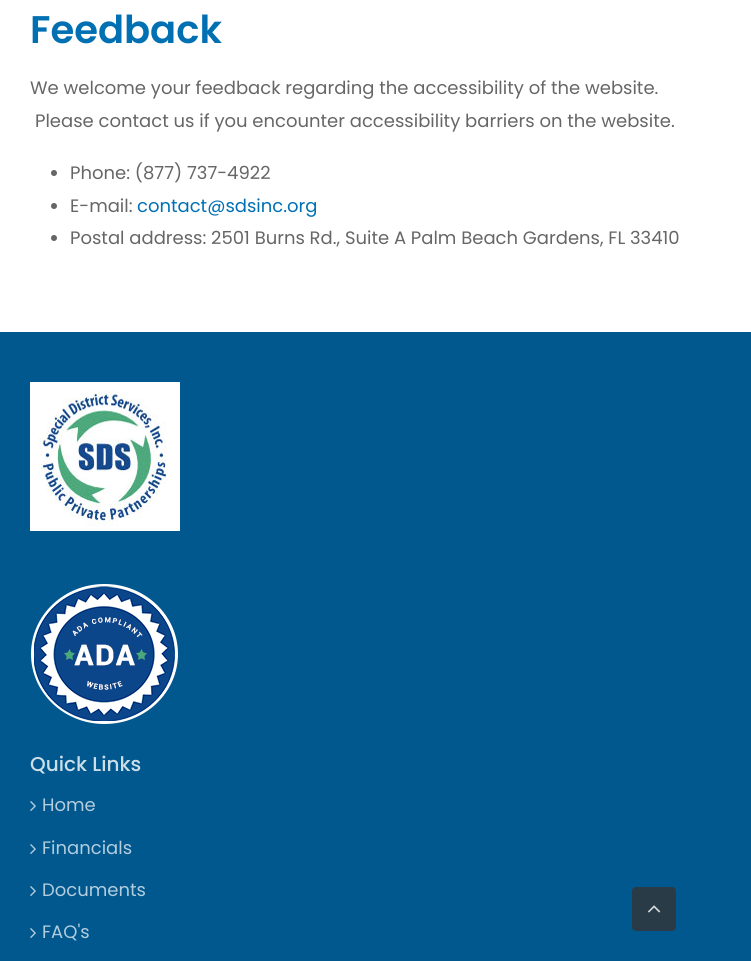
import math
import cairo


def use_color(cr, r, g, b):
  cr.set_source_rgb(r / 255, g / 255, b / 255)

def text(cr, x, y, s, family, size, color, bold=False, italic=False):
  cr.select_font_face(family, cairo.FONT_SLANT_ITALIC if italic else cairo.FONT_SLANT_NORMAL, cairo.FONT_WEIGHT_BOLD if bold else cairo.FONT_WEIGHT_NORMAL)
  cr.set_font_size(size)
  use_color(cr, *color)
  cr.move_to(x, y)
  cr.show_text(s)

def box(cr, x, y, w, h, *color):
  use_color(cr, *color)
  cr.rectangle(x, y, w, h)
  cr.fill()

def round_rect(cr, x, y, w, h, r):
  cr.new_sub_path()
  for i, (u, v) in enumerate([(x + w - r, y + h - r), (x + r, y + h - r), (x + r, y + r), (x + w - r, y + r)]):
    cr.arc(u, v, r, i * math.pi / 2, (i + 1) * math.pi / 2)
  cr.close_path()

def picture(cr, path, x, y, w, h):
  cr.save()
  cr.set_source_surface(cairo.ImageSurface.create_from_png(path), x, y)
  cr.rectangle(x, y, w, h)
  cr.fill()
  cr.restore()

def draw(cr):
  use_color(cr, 255, 255, 255)
  cr.paint()
  use_color(cr, 102, 102, 102)
  cr.arc(54, 173, 3, 0, 2 * math.pi)
  cr.fill()
  cr.arc(54, 206, 3, 0, 2 * math.pi)
  cr.fill()
  cr.arc(54, 238, 3, 0, 2 * math.pi)
  cr.fill()
  box(cr, 0, 332, 751, 629, 0, 88, 142)
  picture(cr, "img_01.png", 30, 382, 150, 149)
  picture(cr, "img_02.png", 31, 584, 147, 140)
  picture(cr, "img_03.png", 30, 801, 6, 10)
  picture(cr, "img_03.png", 30, 844, 6, 10)
  picture(cr, "img_03.png", 30, 886, 6, 10)
  picture(cr, "img_03.png", 30, 928, 6, 10)
  use_color(cr, 41, 59, 70)
  round_rect(cr, 632, 887, 44, 44, 4)
  cr.fill()
  picture(cr, "img_04.png", 648, 905, 13, 8)
  text(cr, 30, 43, "Feedback", "Poppins SemiBold", 38.5, (0, 112, 179))
  text(cr, 30, 94, "We welcome your feedback regarding the accessibility of the website.", "Poppins", 18, (102, 102, 102))
  text(cr, 35, 127, "Please contact us if you encounter accessibility barriers on the website.", "Poppins", 18, (102, 102, 102))
  text(cr, 70, 179, "Phone: (877) 737-4922", "Poppins", 18, (102, 102, 102))
  text(cr, 70, 212, "E-mail:", "Poppins", 18, (102, 102, 102))
  text(cr, 137, 212, "contact@sdsinc.org", "Poppins", 18, (0, 112, 179))
  text(cr, 70, 244, "Postal address: 2501 Burns Rd., Suite A Palm Beach Gardens, FL 33410", "Poppins", 18, (102, 102, 102))
  text(cr, 30, 771, "Quick Links", "Poppins Medium", 20, (204, 222, 232))
  text(cr, 42, 811, "Home", "Poppins", 18, (179, 205, 221))
  text(cr, 42, 854, "Financials", "Poppins", 18, (179, 205, 221))
  text(cr, 42, 896, "Documents", "Poppins", 18, (179, 205, 221))
  text(cr, 42, 938, "FAQ's", "Poppins", 18, (179, 205, 221))


surface = cairo.ImageSurface(cairo.FORMAT_RGB24, 751, 961)
cr = cairo.Context(surface)
options = cairo.FontOptions()
options.set_hint_metrics(cairo.HINT_METRICS_OFF)
options.set_hint_style(cairo.HINT_STYLE_NONE)
cr.set_font_options(options)
cr.set_miter_limit(4)
draw(cr)
surface.write_to_png("out.png")
